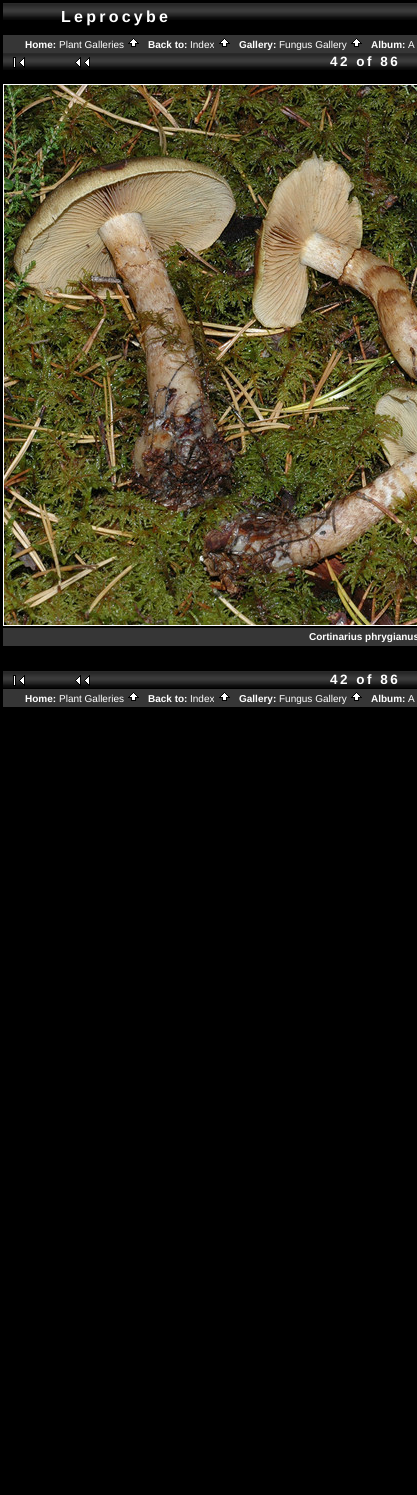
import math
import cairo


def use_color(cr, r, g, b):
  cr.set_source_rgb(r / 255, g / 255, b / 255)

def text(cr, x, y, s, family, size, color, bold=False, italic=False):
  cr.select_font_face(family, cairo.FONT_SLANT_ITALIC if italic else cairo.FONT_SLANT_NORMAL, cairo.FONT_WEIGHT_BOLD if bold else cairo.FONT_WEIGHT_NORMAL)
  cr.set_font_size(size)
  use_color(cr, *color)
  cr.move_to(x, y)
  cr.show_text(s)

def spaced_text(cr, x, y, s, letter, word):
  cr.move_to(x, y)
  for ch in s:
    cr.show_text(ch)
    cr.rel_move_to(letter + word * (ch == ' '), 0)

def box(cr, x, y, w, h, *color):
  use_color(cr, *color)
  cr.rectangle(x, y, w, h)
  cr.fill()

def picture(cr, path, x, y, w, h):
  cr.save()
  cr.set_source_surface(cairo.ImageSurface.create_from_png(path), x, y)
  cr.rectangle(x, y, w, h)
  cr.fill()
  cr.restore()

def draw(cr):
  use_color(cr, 0, 0, 0)
  cr.paint()
  picture(cr, "img_01.png", 3, 3, 414, 17)
  box(cr, 3, 35, 414, 18, 54, 54, 54)
  picture(cr, "img_02.png", 128, 38, 11, 9)
  picture(cr, "img_02.png", 219, 38, 11, 9)
  picture(cr, "img_02.png", 351, 38, 11, 9)
  picture(cr, "img_01.png", 3, 53, 414, 17)
  picture(cr, "img_03.png", 13, 57, 12, 11)
  picture(cr, "img_04.png", 75, 57, 15, 11)
  box(cr, 3, 84, 414, 1, 255, 255, 255)
  box(cr, 3, 85, 1, 540, 255, 255, 255)
  picture(cr, "img_05.png", 4, 85, 413, 540)
  box(cr, 3, 625, 414, 1, 255, 255, 255)
  box(cr, 3, 628, 414, 18, 54, 54, 54)
  picture(cr, "img_01.png", 3, 671, 414, 17)
  picture(cr, "img_03.png", 13, 675, 12, 11)
  picture(cr, "img_04.png", 75, 675, 15, 11)
  box(cr, 3, 689, 414, 18, 54, 54, 54)
  picture(cr, "img_02.png", 128, 692, 11, 9)
  picture(cr, "img_02.png", 219, 692, 11, 9)
  picture(cr, "img_02.png", 351, 692, 11, 9)
  cr.select_font_face("Liberation Sans", cairo.FONT_SLANT_NORMAL, cairo.FONT_WEIGHT_BOLD)
  cr.set_font_size(16)
  use_color(cr, 255, 255, 255)
  spaced_text(cr, 61, 22, "Leprocybe", 3.25, 0)
  text(cr, 25, 48, "Home:", "Liberation Sans", 10, (255, 255, 255), bold=True)
  text(cr, 59, 48, "Plant Galleries", "Liberation Sans", 10, (255, 255, 255))
  text(cr, 148, 48, "Back to:", "Liberation Sans", 10, (255, 255, 255), bold=True)
  text(cr, 190, 48, "Index", "Liberation Sans", 10, (255, 255, 255))
  text(cr, 239, 48, "Gallery:", "Liberation Sans", 10, (255, 255, 255), bold=True)
  text(cr, 279, 48, "Fungus Gallery", "Liberation Sans", 10, (255, 255, 255))
  text(cr, 371, 48, "Album:", "Liberation Sans", 10, (255, 255, 255), bold=True)
  text(cr, 408, 48, "A", "Liberation Sans", 10, (255, 255, 255))
  cr.select_font_face("Liberation Sans", cairo.FONT_SLANT_NORMAL, cairo.FONT_WEIGHT_BOLD)
  cr.set_font_size(13.5)
  spaced_text(cr, 330, 66, "42 of 86", 2.5, 0)
  text(cr, 309, 640, "Cortinarius phrygianus", "Liberation Sans", 10, (255, 255, 255), bold=True)
  cr.set_font_size(13.5)
  spaced_text(cr, 330, 684, "42 of 86", 2.5, 0)
  text(cr, 25, 702, "Home:", "Liberation Sans", 10, (255, 255, 255), bold=True)
  text(cr, 59, 702, "Plant Galleries", "Liberation Sans", 10, (255, 255, 255))
  text(cr, 148, 702, "Back to:", "Liberation Sans", 10, (255, 255, 255), bold=True)
  text(cr, 190, 702, "Index", "Liberation Sans", 10, (255, 255, 255))
  text(cr, 239, 702, "Gallery:", "Liberation Sans", 10, (255, 255, 255), bold=True)
  text(cr, 279, 702, "Fungus Gallery", "Liberation Sans", 10, (255, 255, 255))
  text(cr, 371, 702, "Album:", "Liberation Sans", 10, (255, 255, 255), bold=True)
  text(cr, 408, 702, "A", "Liberation Sans", 10, (255, 255, 255))


surface = cairo.ImageSurface(cairo.FORMAT_RGB24, 417, 1495)
cr = cairo.Context(surface)
options = cairo.FontOptions()
options.set_hint_metrics(cairo.HINT_METRICS_OFF)
options.set_hint_style(cairo.HINT_STYLE_NONE)
cr.set_font_options(options)
cr.set_miter_limit(4)
draw(cr)
surface.write_to_png("out.png")
